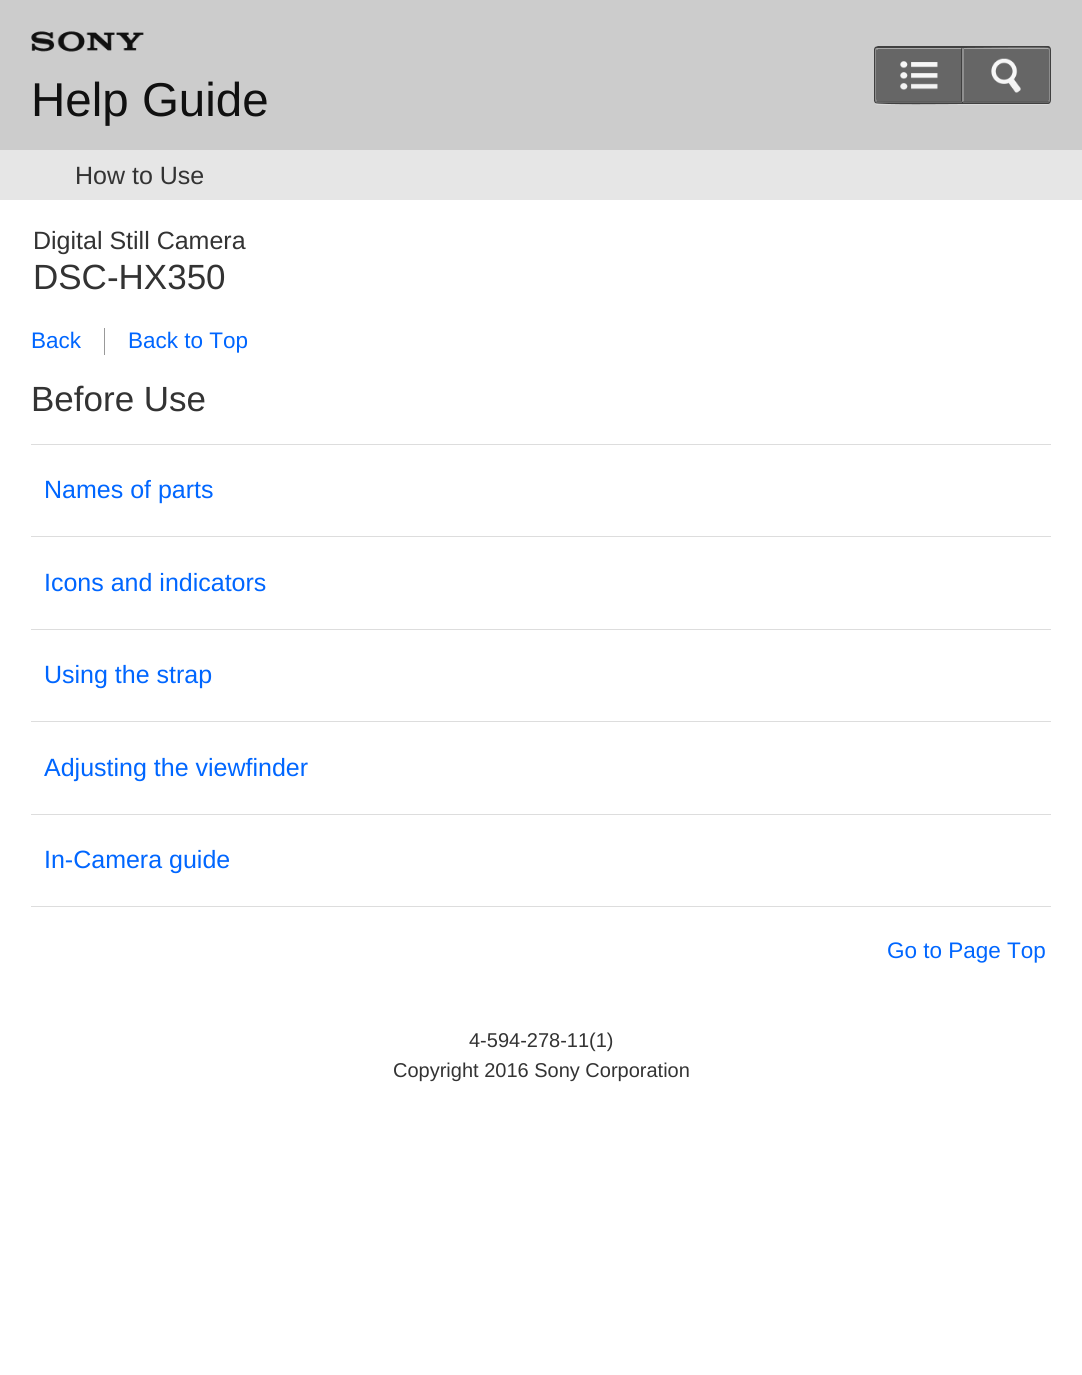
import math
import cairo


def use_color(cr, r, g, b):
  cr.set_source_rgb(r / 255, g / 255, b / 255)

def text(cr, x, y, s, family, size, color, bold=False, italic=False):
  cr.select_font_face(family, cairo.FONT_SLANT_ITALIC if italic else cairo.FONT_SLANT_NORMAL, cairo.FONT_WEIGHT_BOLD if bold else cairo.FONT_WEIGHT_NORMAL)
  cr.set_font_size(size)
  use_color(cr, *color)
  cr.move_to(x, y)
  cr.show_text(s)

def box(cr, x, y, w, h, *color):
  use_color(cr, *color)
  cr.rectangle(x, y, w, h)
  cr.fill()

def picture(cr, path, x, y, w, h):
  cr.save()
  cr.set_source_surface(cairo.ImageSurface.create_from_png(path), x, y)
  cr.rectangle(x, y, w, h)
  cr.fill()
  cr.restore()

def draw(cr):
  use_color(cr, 255, 255, 255)
  cr.paint()
  box(cr, 0, 0, 1082, 150, 204, 204, 204)
  picture(cr, "img_01.png", 31, 31, 113, 21)
  use_color(cr, 217, 217, 217)
  cr.new_path()
  cr.move_to(874, 101)
  cr.curve_to(874, 103, 876, 105, 878, 105)
  cr.line_to(963, 105)
  cr.line_to(963, 48)
  cr.line_to(962, 48)
  cr.line_to(962, 104)
  cr.line_to(878, 104)
  cr.curve_to(876, 104, 875, 103, 874, 101)
  cr.close_path()
  cr.fill()
  use_color(cr, 64, 64, 64)
  cr.set_fill_rule(cairo.FILL_RULE_EVEN_ODD)
  cr.new_path()
  cr.move_to(878, 46)
  cr.line_to(962, 46)
  cr.line_to(962, 104)
  cr.curve_to(953, 104, 878, 105, 875, 103)
  cr.line_to(874, 101)
  cr.line_to(874, 49)
  cr.line_to(875, 47)
  cr.close_path()
  cr.move_to(878, 48)
  cr.line_to(962, 48)
  cr.line_to(962, 102)
  cr.line_to(878, 102)
  cr.curve_to(876, 102, 875, 101, 875, 100)
  cr.line_to(875, 50)
  cr.curve_to(875, 49, 876, 48, 878, 48)
  cr.close_path()
  cr.fill()
  use_color(cr, 102, 102, 102)
  cr.new_path()
  cr.move_to(877.5, 48)
  cr.line_to(963, 48)
  cr.line_to(963, 103)
  cr.line_to(877.5, 103)
  cr.curve_to(876, 103, 875, 102, 875, 100.5)
  cr.line_to(875, 50.5)
  cr.curve_to(875, 49, 876, 48, 877.5, 48)
  cr.close_path()
  cr.fill()
  use_color(cr, 168, 168, 168)
  cr.set_fill_rule(cairo.FILL_RULE_WINDING)
  cr.new_path()
  cr.move_to(878, 48)
  cr.line_to(876, 48)
  cr.line_to(877, 50)
  cr.line_to(878, 49)
  cr.line_to(961, 49)
  cr.line_to(962, 48)
  cr.close_path()
  cr.fill()
  use_color(cr, 64, 64, 64)
  cr.new_path()
  cr.move_to(962, 102)
  cr.line_to(962, 48)
  cr.line_to(961, 49)
  cr.line_to(961, 101)
  cr.close_path()
  cr.fill()
  use_color(cr, 92, 92, 92)
  cr.new_path()
  cr.move_to(962, 102)
  cr.line_to(961, 101)
  cr.line_to(891, 101)
  cr.curve_to(882, 101, 878, 102, 877, 101)
  cr.line_to(876, 102)
  cr.line_to(878, 102)
  cr.close_path()
  cr.fill()
  use_color(cr, 141, 141, 141)
  cr.new_path()
  cr.move_to(875, 50)
  cr.line_to(875, 100)
  cr.line_to(876, 102)
  cr.line_to(877, 101)
  cr.line_to(876, 99)
  cr.line_to(876, 50)
  cr.line_to(877, 50)
  cr.line_to(876, 48)
  cr.close_path()
  cr.fill()
  picture(cr, "img_02.png", 900, 61, 38, 29)
  use_color(cr, 217, 217, 217)
  cr.new_path()
  cr.move_to(963, 104)
  cr.line_to(963, 105)
  cr.line_to(1047, 105)
  cr.curve_to(1049, 105, 1051, 103, 1051, 101)
  cr.curve_to(1050, 103, 1049, 104, 1048, 104)
  cr.close_path()
  cr.fill()
  use_color(cr, 64, 64, 64)
  cr.set_fill_rule(cairo.FILL_RULE_EVEN_ODD)
  cr.new_path()
  cr.move_to(962, 46)
  cr.line_to(1048, 46)
  cr.curve_to(1050, 46, 1051, 48, 1051, 50)
  cr.line_to(1051, 100)
  cr.curve_to(1051, 102, 1050, 104, 1048, 104)
  cr.line_to(962, 104)
  cr.close_path()
  cr.move_to(962, 48)
  cr.line_to(1048, 48)
  cr.curve_to(1049, 48, 1050, 49, 1050, 50)
  cr.line_to(1050, 100)
  cr.curve_to(1050, 101, 1049, 102, 1048, 102)
  cr.line_to(962, 102)
  cr.close_path()
  cr.fill()
  use_color(cr, 102, 102, 102)
  cr.new_path()
  cr.move_to(963, 48)
  cr.line_to(1047.5, 48)
  cr.curve_to(1049, 48, 1050, 49, 1050, 50.5)
  cr.line_to(1050, 100.5)
  cr.curve_to(1050, 102, 1049, 103, 1047.5, 103)
  cr.line_to(963, 103)
  cr.close_path()
  cr.fill()
  use_color(cr, 168, 168, 168)
  cr.set_fill_rule(cairo.FILL_RULE_WINDING)
  cr.new_path()
  cr.move_to(964, 49)
  cr.line_to(1048, 49)
  cr.line_to(1049, 48)
  cr.curve_to(1048, 47, 972, 48, 963, 48)
  cr.close_path()
  cr.fill()
  use_color(cr, 141, 141, 141)
  cr.new_path()
  cr.move_to(1049, 48)
  cr.line_to(1050, 50)
  cr.line_to(1050, 100)
  cr.line_to(1049, 102)
  cr.line_to(1048, 101)
  cr.line_to(1049, 100)
  cr.line_to(1049, 50)
  cr.line_to(1048, 49)
  cr.close_path()
  cr.fill()
  use_color(cr, 92, 92, 92)
  cr.new_path()
  cr.move_to(1049, 102)
  cr.curve_to(1048, 103, 972, 102, 963, 102)
  cr.line_to(964, 101)
  cr.line_to(1048, 101)
  cr.close_path()
  cr.fill()
  use_color(cr, 143, 143, 143)
  cr.new_path()
  cr.move_to(964, 49)
  cr.line_to(964, 101)
  cr.line_to(962, 102)
  cr.line_to(962, 48)
  cr.line_to(963, 48)
  cr.close_path()
  cr.fill()
  picture(cr, "img_03.png", 991, 58, 30, 35)
  box(cr, 0, 150, 1082, 50, 230, 230, 230)
  box(cr, 104, 328, 1, 27, 153, 153, 153)
  box(cr, 31, 444, 1020, 1, 221, 221, 221)
  box(cr, 31, 536, 1020, 1, 221, 221, 221)
  box(cr, 31, 629, 1020, 1, 221, 221, 221)
  box(cr, 31, 721, 1020, 1, 221, 221, 221)
  box(cr, 31, 814, 1020, 1, 221, 221, 221)
  box(cr, 31, 906, 1020, 1, 221, 221, 221)
  text(cr, 31, 116, "Help Guide", "Liberation Sans", 47.5, (16, 16, 16))
  text(cr, 75, 184, "How to Use", "Liberation Sans", 25, (51, 51, 51))
  text(cr, 33, 249, "Digital Still Camera", "Liberation Sans", 25, (51, 51, 51))
  text(cr, 33, 289, "DSC-HX350", "Liberation Sans", 35, (51, 51, 51))
  text(cr, 31, 348, "Back", "Liberation Sans", 22.5, (0, 102, 255))
  text(cr, 128, 348, "Back to Top", "Liberation Sans", 22.5, (0, 102, 255))
  text(cr, 31, 411, "Before Use", "Liberation Sans", 35, (51, 51, 51))
  text(cr, 44, 498, "Names of parts", "Liberation Sans", 25, (0, 102, 255))
  text(cr, 44, 591, "Icons and indicators", "Liberation Sans", 25, (0, 102, 255))
  text(cr, 44, 683, "Using the strap", "Liberation Sans", 25, (0, 102, 255))
  text(cr, 44, 776, "Adjusting the viewfinder", "Liberation Sans", 25, (0, 102, 255))
  text(cr, 44, 868, "In-Camera guide", "Liberation Sans", 25, (0, 102, 255))
  text(cr, 887, 958, "Go to Page Top", "Liberation Sans", 22.5, (0, 102, 255))
  text(cr, 469, 1047, "4-594-278-11(1)", "Liberation Sans", 20, (51, 51, 51))
  text(cr, 393, 1077, "Copyright 2016 Sony Corporation", "Liberation Sans", 20, (51, 51, 51))


surface = cairo.ImageSurface(cairo.FORMAT_RGB24, 1082, 1375)
cr = cairo.Context(surface)
options = cairo.FontOptions()
options.set_hint_metrics(cairo.HINT_METRICS_OFF)
options.set_hint_style(cairo.HINT_STYLE_NONE)
cr.set_font_options(options)
cr.set_miter_limit(4)
draw(cr)
surface.write_to_png("out.png")
